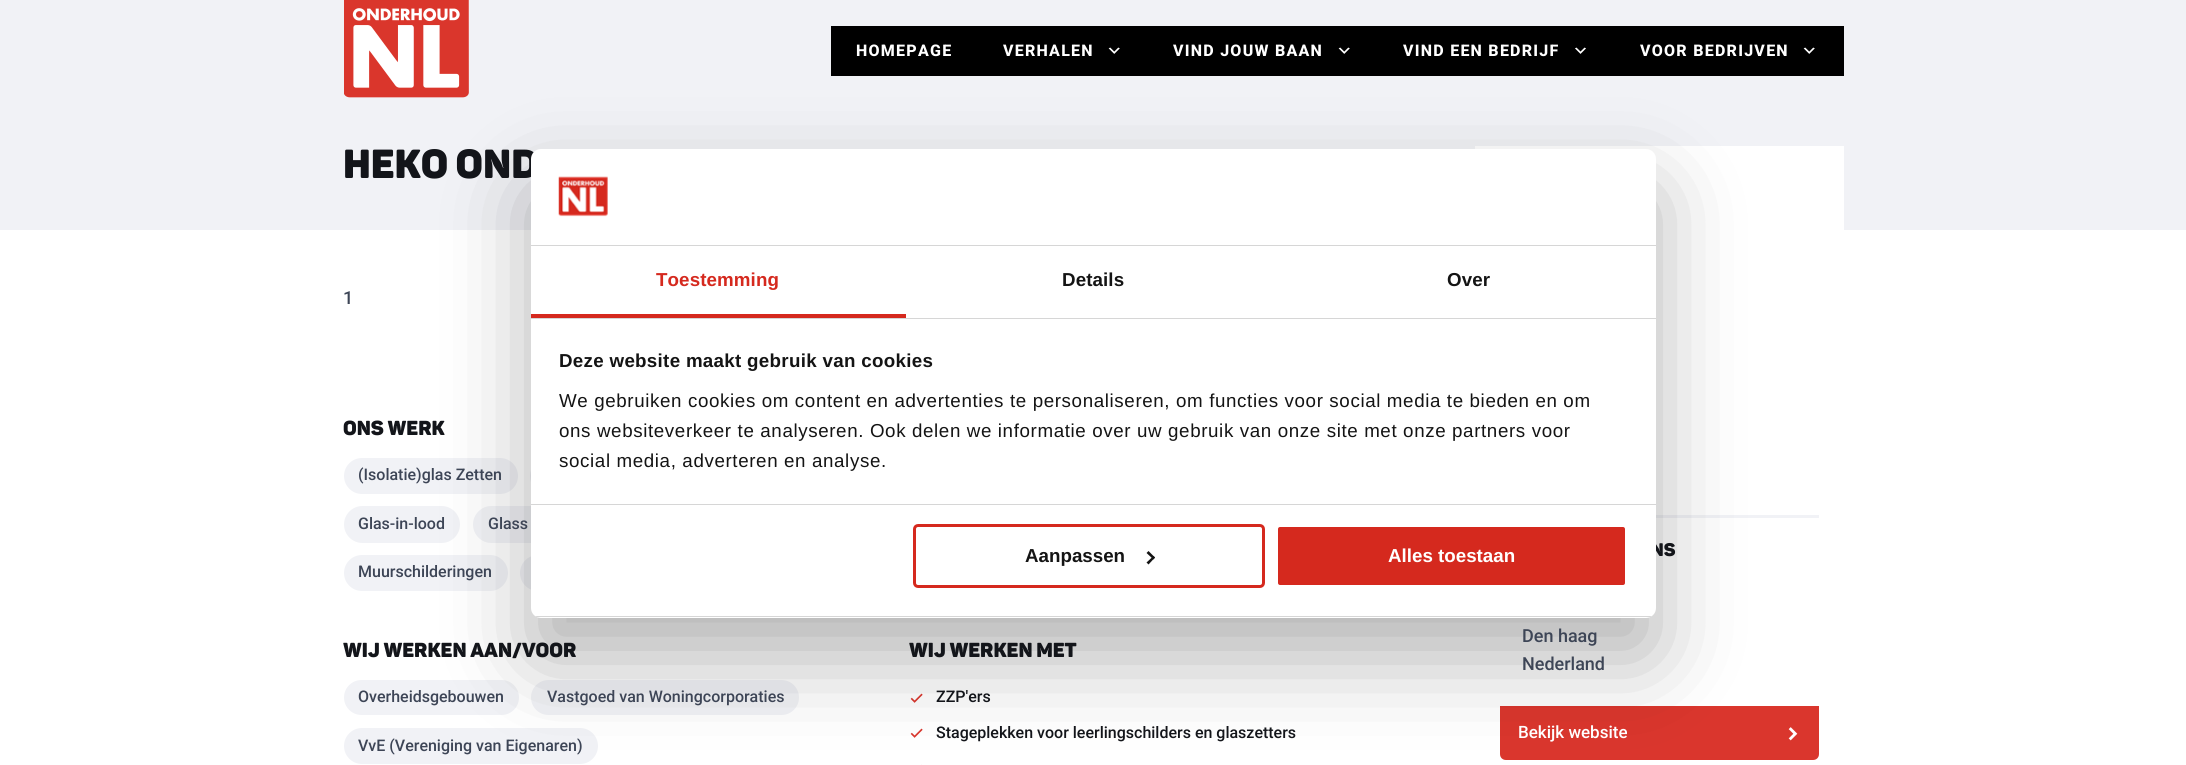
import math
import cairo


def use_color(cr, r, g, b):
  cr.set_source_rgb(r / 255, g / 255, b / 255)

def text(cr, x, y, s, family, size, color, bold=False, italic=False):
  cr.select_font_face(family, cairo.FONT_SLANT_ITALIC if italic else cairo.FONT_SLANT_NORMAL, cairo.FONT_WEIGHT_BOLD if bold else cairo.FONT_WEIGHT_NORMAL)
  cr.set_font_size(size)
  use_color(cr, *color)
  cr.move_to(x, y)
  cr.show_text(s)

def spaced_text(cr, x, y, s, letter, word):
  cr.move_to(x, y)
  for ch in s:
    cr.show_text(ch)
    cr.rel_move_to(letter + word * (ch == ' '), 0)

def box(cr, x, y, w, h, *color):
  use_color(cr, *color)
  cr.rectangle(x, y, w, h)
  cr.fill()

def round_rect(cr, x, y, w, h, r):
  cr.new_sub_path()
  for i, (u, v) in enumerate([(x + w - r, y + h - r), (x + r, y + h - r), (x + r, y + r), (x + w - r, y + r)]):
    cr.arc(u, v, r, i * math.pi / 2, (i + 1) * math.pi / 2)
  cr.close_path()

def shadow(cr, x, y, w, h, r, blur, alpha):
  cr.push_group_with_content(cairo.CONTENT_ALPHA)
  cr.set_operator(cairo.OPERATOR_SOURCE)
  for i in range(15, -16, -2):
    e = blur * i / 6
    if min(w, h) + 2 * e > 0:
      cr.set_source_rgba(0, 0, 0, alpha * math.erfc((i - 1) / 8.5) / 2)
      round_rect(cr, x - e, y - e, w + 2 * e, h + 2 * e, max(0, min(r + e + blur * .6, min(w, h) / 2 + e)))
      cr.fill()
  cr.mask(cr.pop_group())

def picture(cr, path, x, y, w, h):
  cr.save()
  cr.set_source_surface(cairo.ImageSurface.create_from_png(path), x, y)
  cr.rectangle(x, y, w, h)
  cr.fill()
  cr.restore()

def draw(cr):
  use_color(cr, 255, 255, 255)
  cr.paint()
  box(cr, 0, 0, 2186, 230, 241, 242, 246)
  picture(cr, "img_01.png", 344, 0, 125, 98)
  box(cr, 831, 26, 1013, 50, 0, 0, 0)
  picture(cr, "img_02.png", 1108, 47, 12, 7)
  picture(cr, "img_02.png", 1338, 47, 12, 7)
  picture(cr, "img_03.png", 1575, 47, 11, 7)
  picture(cr, "img_02.png", 1803, 47, 12, 7)
  box(cr, 1475, 146, 369, 84, 255, 255, 255)
  box(cr, 1656, 515, 163, 3, 241, 242, 246)
  use_color(cr, 218, 54, 45)
  cr.new_path()
  cr.move_to(1500, 706)
  cr.line_to(1819, 706)
  cr.line_to(1819, 754)
  cr.curve_to(1819, 757.5, 1816.5, 760, 1813, 760)
  cr.line_to(1506, 760)
  cr.curve_to(1502.5, 760, 1500, 757.5, 1500, 754)
  cr.close_path()
  cr.fill()
  picture(cr, "img_04.png", 1788, 727, 10, 14)
  use_color(cr, 241, 242, 246)
  round_rect(cr, 344, 458, 174, 36, 18)
  cr.fill()
  round_rect(cr, 530, 458, 226, 36, 18)
  cr.fill()
  round_rect(cr, 344, 506, 116, 37, 18.5)
  cr.fill()
  round_rect(cr, 473, 506, 191, 37, 18.5)
  cr.fill()
  round_rect(cr, 344, 555, 164, 36, 18)
  cr.fill()
  round_rect(cr, 520, 555, 120, 36, 18)
  cr.fill()
  round_rect(cr, 344, 680, 175, 35, 17.5)
  cr.fill()
  round_rect(cr, 531, 680, 268, 35, 17.5)
  cr.fill()
  round_rect(cr, 344, 728, 254, 36, 18)
  cr.fill()
  picture(cr, "img_05.png", 910, 693, 13, 10)
  picture(cr, "img_05.png", 910, 728, 13, 10)
  box(cr, 921, 764, 1, 1, 254, 249, 249)
  use_color(cr, 0, 0, 0)
  shadow(cr, 531, 189, 1125, 469, 10, 42.5, 0.3)
  cr.select_font_face("Roboto ExtraBold")
  cr.set_font_size(16)
  use_color(cr, 255, 255, 255)
  spaced_text(cr, 856, 56, "HOMEPAGE", 1.25, 0)
  spaced_text(cr, 1003, 56, "VERHALEN", 1.25, 0)
  spaced_text(cr, 1173, 56, "VIND JOUW BAAN", 1.25, 0)
  spaced_text(cr, 1403, 56, "VIND EEN BEDRIJF", 1.25, 0)
  spaced_text(cr, 1640, 56, "VOOR BEDRIJVEN", 1.25, 0)
  text(cr, 343, 178, "HEKO OND", "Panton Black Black", 40, (19, 21, 26))
  text(cr, 1651, 556, "NS", "Panton Black Black", 18, (19, 21, 26))
  text(cr, 1522, 642, "Den haag", "Roboto Medium", 18, (61, 69, 86))
  text(cr, 1522, 670, "Nederland", "Roboto Medium", 18, (61, 69, 86))
  text(cr, 1518, 738, "Bekijk website", "Roboto Medium", 17, (255, 255, 255))
  text(cr, 343, 304, "1", "Roboto Medium", 18, (61, 69, 86))
  text(cr, 343, 435, "ONS WERK", "Panton Black Black", 20, (19, 21, 26))
  text(cr, 358, 480, "(Isolatie)glas Zetten", "Roboto Medium", 16, (61, 69, 86))
  text(cr, 358, 529, "Glas-in-lood", "Roboto Medium", 16, (61, 69, 86))
  text(cr, 488, 529, "Glass", "Roboto Medium", 16, (61, 69, 86))
  text(cr, 358, 577, "Muurschilderingen", "Roboto Medium", 16, (61, 69, 86))
  text(cr, 343, 657, "WIJ WERKEN AAN/VOOR", "Panton Black Black", 20, (19, 21, 26))
  text(cr, 358, 702, "Overheidsgebouwen", "Roboto Medium", 16, (61, 69, 86))
  text(cr, 547, 702, "Vastgoed van Woningcorporaties", "Roboto Medium", 16, (61, 69, 86))
  text(cr, 358, 751, "VvE (Vereniging van Eigenaren)", "Roboto Medium", 16, (61, 69, 86))
  text(cr, 909, 657, "WIJ WERKEN MET", "Panton Black Black", 20, (19, 21, 26))
  text(cr, 936, 702, "ZZP'ers", "Roboto Medium", 16, (19, 21, 26))
  text(cr, 936, 738, "Stageplekken voor leerlingschilders en glaszetters", "Roboto Medium", 16, (19, 21, 26))
  use_color(cr, 255, 255, 255)
  round_rect(cr, 531, 149, 1125, 469, 10)
  cr.fill()
  box(cr, 531, 245, 1125, 1, 214, 214, 214)
  picture(cr, "img_06.png", 558, 176, 50, 41)
  box(cr, 531, 318, 1125, 1, 214, 214, 214)
  box(cr, 531, 314, 375, 4, 213, 41, 30)
  cr.select_font_face("Liberation Sans", cairo.FONT_SLANT_NORMAL, cairo.FONT_WEIGHT_BOLD)
  cr.set_font_size(18.75)
  spaced_text(cr, 656, 286, "Toestemming", 0.1, 0)
  use_color(cr, 20, 20, 20)
  spaced_text(cr, 1062, 286, "Details", 0.1, 0)
  spaced_text(cr, 1447, 286, "Over", 0.1, 0)
  box(cr, 531, 504, 1125, 1, 214, 214, 214)
  use_color(cr, 20, 20, 20)
  spaced_text(cr, 559, 367, "Deze website maakt gebruik van cookies", 0.3, 0)
  cr.select_font_face("Liberation Sans")
  spaced_text(cr, 559, 407, "We gebruiken cookies om content en advertenties te personaliseren, om functies voor social media te bieden en om", 0.62, 0)
  spaced_text(cr, 559, 437, "ons websiteverkeer te analyseren. Ook delen we informatie over uw gebruik van onze site met onze partners voor", 0.62, 0)
  spaced_text(cr, 559, 467, "social media, adverteren en analyse.", 0.62, 0)
  cr.save()
  round_rect(cr, 531, 149, 1125, 469, 10)
  cr.clip()
  box(cr, 531, 616, 1125, 1, 214, 214, 214)
  cr.restore()
  round_rect(cr, 914.5, 525.5, 349, 61, 3.5)
  use_color(cr, 213, 41, 30)
  cr.set_line_width(3)
  cr.stroke()
  text(cr, 1025, 562, "Aanpassen", "Liberation Sans", 18.75, (20, 20, 20), bold=True)
  cr.new_path()
  cr.move_to(1148.5, 551)
  cr.line_to(1155, 557.5)
  cr.line_to(1153.5, 559.5)
  cr.line_to(1146.5, 553)
  cr.close_path()
  cr.fill()
  cr.new_path()
  cr.move_to(1153.5, 556)
  cr.line_to(1155, 557.5)
  cr.line_to(1148.5, 564.5)
  cr.line_to(1146.5, 562.5)
  cr.close_path()
  cr.fill()
  use_color(cr, 213, 41, 30)
  round_rect(cr, 1276.5, 525.5, 350, 61, 3.5)
  cr.fill_preserve()
  use_color(cr, 255, 255, 255)
  cr.stroke()
  text(cr, 1388, 562, "Alles toestaan", "Liberation Sans", 18.75, (255, 255, 255), bold=True)


surface = cairo.ImageSurface(cairo.FORMAT_RGB24, 2186, 765)
cr = cairo.Context(surface)
options = cairo.FontOptions()
options.set_hint_metrics(cairo.HINT_METRICS_OFF)
options.set_hint_style(cairo.HINT_STYLE_NONE)
cr.set_font_options(options)
cr.set_miter_limit(4)
draw(cr)
surface.write_to_png("out.png")
